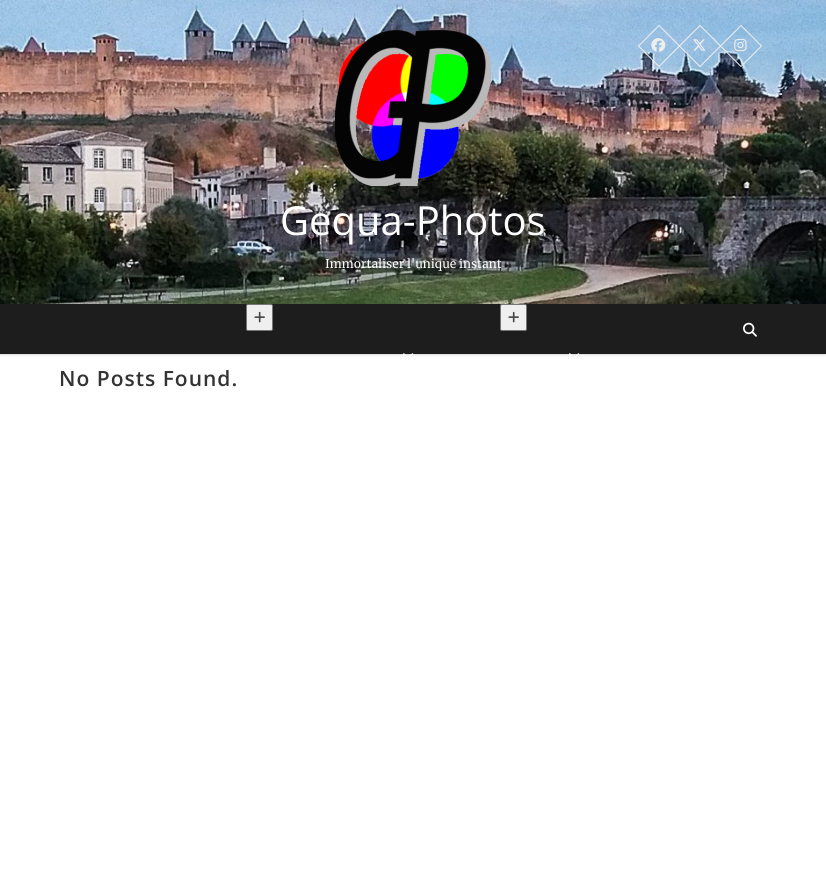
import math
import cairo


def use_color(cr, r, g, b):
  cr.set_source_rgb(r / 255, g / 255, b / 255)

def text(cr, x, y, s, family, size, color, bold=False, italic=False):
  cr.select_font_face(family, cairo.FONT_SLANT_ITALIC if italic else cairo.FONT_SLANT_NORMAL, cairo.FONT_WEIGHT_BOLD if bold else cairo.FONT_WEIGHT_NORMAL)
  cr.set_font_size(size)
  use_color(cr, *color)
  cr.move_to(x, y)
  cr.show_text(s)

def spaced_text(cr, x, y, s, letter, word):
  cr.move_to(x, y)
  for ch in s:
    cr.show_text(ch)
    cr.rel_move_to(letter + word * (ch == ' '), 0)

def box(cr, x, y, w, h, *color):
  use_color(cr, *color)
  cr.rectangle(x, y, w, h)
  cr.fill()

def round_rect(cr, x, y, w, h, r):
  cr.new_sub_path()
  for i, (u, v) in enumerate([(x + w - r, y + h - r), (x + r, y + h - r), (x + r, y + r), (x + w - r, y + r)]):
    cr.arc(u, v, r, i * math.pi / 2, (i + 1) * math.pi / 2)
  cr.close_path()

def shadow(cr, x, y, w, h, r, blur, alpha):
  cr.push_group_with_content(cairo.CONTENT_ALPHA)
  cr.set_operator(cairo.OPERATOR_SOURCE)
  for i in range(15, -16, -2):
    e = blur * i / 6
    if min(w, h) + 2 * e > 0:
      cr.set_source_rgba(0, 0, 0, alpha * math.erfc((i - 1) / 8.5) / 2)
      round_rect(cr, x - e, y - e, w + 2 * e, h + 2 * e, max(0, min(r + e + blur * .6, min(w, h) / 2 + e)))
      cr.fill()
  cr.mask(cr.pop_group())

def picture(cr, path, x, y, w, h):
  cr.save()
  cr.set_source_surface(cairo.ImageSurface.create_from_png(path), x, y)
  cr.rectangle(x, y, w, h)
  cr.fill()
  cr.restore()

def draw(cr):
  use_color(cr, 255, 255, 255)
  cr.paint()
  picture(cr, "img_01.png", 0, 0, 826, 304)
  cr.new_path()
  cr.move_to(638.5, 46)
  cr.line_to(659, 25.5)
  cr.line_to(679.5, 46)
  cr.line_to(659, 66.5)
  cr.close_path()
  use_color(cr, 238, 238, 238)
  cr.set_line_width(1)
  cr.stroke()
  picture(cr, "img_02.png", 651, 38, 15, 14)
  cr.new_path()
  cr.move_to(679.5, 46)
  cr.line_to(700, 25.5)
  cr.line_to(720.5, 46)
  cr.line_to(700, 66.5)
  cr.close_path()
  cr.stroke()
  picture(cr, "img_03.png", 693, 39, 13, 12)
  cr.new_path()
  cr.move_to(720.5, 46)
  cr.line_to(741, 25.5)
  cr.line_to(761.5, 46)
  cr.line_to(741, 66.5)
  cr.close_path()
  cr.stroke()
  picture(cr, "img_04.png", 734, 38, 13, 14)
  picture(cr, "img_05.png", 335, 30, 156, 156)
  use_color(cr, 0, 0, 0)
  shadow(cr, 0, 305, 826, 50, 0, 1, 0.15)
  box(cr, 0, 304, 826, 50, 29, 29, 29)
  use_color(cr, 239, 239, 239)
  round_rect(cr, 246.5, 304.5, 26, 26, 1.5)
  cr.fill_preserve()
  use_color(cr, 118, 118, 118)
  cr.stroke()
  picture(cr, "img_06.png", 254, 311, 11, 12)
  picture(cr, "img_07.png", 403, 353, 11, 3)
  use_color(cr, 239, 239, 239)
  round_rect(cr, 500.5, 304.5, 26, 26, 1.5)
  cr.fill_preserve()
  use_color(cr, 118, 118, 118)
  cr.stroke()
  picture(cr, "img_06.png", 508, 311, 11, 12)
  picture(cr, "img_07.png", 569, 353, 11, 3)
  picture(cr, "img_08.png", 743, 322, 14, 15)
  text(cr, 280, 235, "Gequa-Photos", "Open Sans", 40, (255, 255, 255))
  text(cr, 325, 268, "Immortaliser l'unique instant", "Merriweather", 12, (255, 255, 255))
  cr.select_font_face("Open Sans SemiBold")
  cr.set_font_size(21)
  use_color(cr, 51, 51, 51)
  spaced_text(cr, 59, 386, "No Posts Found.", 1, 0)


surface = cairo.ImageSurface(cairo.FORMAT_RGB24, 826, 883)
cr = cairo.Context(surface)
options = cairo.FontOptions()
options.set_hint_metrics(cairo.HINT_METRICS_OFF)
options.set_hint_style(cairo.HINT_STYLE_NONE)
cr.set_font_options(options)
cr.set_miter_limit(4)
draw(cr)
surface.write_to_png("out.png")
